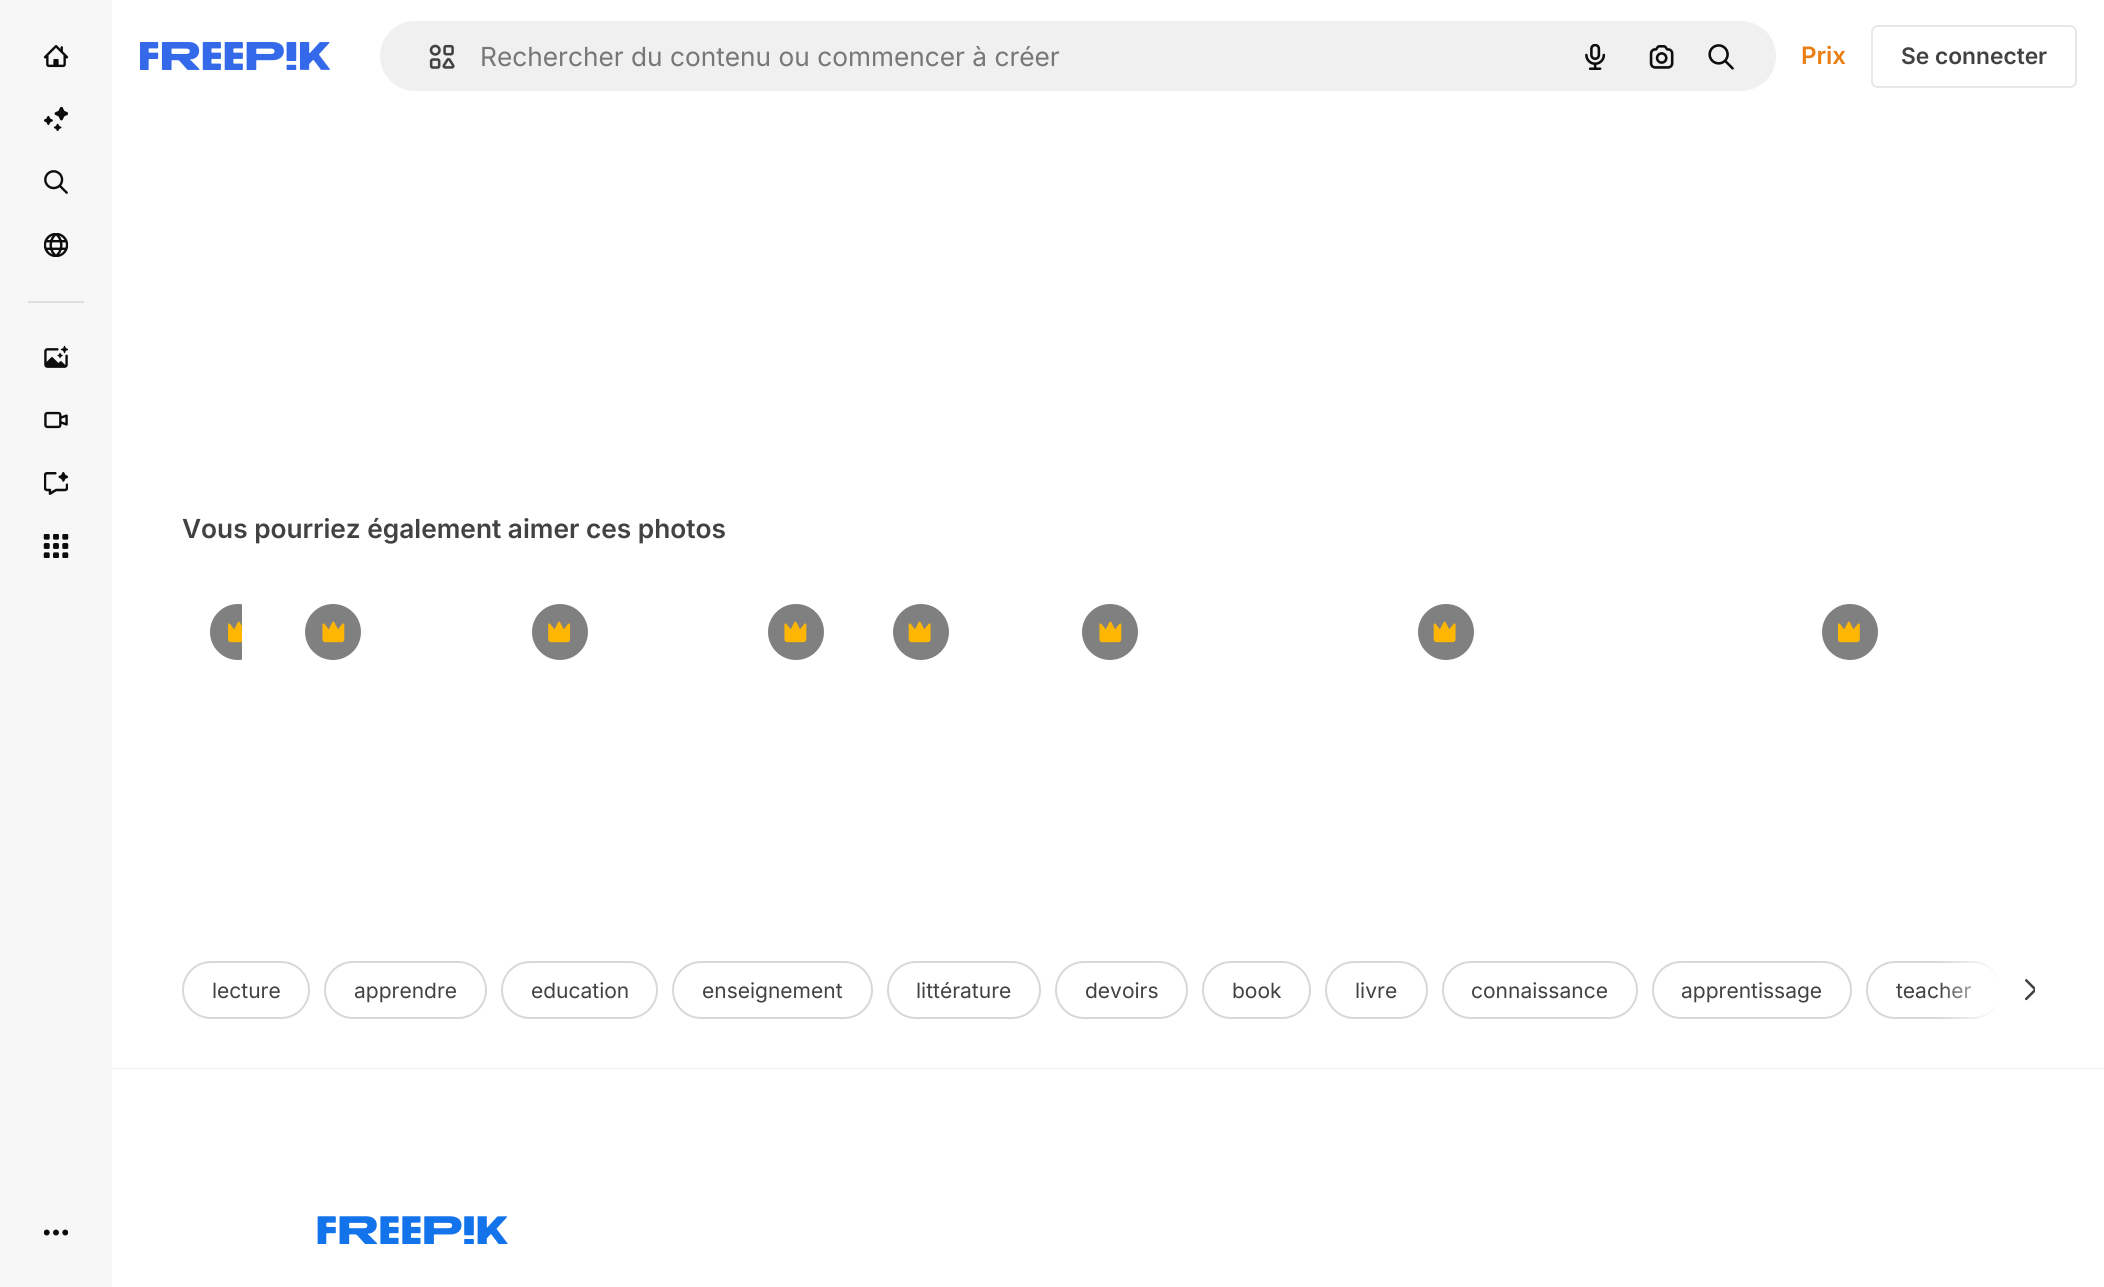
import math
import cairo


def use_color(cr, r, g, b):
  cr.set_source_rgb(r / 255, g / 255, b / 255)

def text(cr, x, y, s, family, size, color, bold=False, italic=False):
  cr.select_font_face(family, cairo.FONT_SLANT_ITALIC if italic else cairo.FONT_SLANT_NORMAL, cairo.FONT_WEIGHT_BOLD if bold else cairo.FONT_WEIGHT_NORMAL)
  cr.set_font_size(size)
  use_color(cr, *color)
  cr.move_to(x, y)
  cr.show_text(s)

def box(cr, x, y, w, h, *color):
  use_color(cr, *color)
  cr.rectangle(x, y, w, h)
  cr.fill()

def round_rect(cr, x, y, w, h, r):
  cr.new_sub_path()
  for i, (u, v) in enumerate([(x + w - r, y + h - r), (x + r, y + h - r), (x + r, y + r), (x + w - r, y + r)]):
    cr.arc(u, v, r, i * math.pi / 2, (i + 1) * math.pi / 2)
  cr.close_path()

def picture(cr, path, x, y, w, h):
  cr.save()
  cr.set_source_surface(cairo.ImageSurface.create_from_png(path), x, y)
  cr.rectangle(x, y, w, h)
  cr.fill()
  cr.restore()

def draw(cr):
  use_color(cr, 255, 255, 255)
  cr.paint()
  box(cr, 0, 0, 112, 1287, 247, 247, 247)
  picture(cr, "img_01.png", 44, 45, 24, 23)
  picture(cr, "img_02.png", 44, 107, 24, 24)
  picture(cr, "img_03.png", 44, 170, 24, 24)
  picture(cr, "img_04.png", 44, 233, 24, 24)
  box(cr, 28, 301, 56, 2, 224, 224, 224)
  picture(cr, "img_05.png", 44, 345, 24, 23)
  picture(cr, "img_06.png", 44, 411, 24, 18)
  picture(cr, "img_07.png", 44, 472, 24, 23)
  picture(cr, "img_08.png", 43, 534, 26, 24)
  picture(cr, "img_09.png", 44, 1229, 24, 7)
  picture(cr, "img_10.png", 140, 42, 190, 28)
  use_color(cr, 240, 240, 240)
  round_rect(cr, 379, 20, 1398, 72, 36)
  cr.fill_preserve()
  use_color(cr, 255, 255, 255)
  cr.stroke()
  picture(cr, "img_11.png", 429, 44, 26, 25)
  picture(cr, "img_12.png", 1585, 44, 21, 26)
  picture(cr, "img_13.png", 1649, 45, 25, 24)
  picture(cr, "img_14.png", 1708, 44, 26, 26)
  round_rect(cr, 1872, 26, 204, 61, 6)
  use_color(cr, 231, 231, 231)
  cr.stroke()
  cr.save()
  round_rect(cr, 182, 576, 60, 350, 28)
  cr.clip()
  use_color(cr, 128, 128, 128)
  cr.arc(238, 632, 28, 0, 2 * math.pi)
  cr.fill()
  cr.restore()
  picture(cr, "img_15.png", 228, 621, 14, 22)
  use_color(cr, 128, 128, 128)
  cr.arc(333, 632, 28, 0, 2 * math.pi)
  cr.fill()
  picture(cr, "img_16.png", 322, 621, 23, 22)
  cr.arc(560, 632, 28, 0, 2 * math.pi)
  cr.fill()
  picture(cr, "img_17.png", 548, 621, 23, 22)
  cr.arc(796, 632, 28, 0, 2 * math.pi)
  cr.fill()
  picture(cr, "img_16.png", 784, 621, 23, 22)
  cr.arc(921, 632, 28, 0, 2 * math.pi)
  cr.fill()
  picture(cr, "img_18.png", 908, 621, 23, 22)
  cr.arc(1110, 632, 28, 0, 2 * math.pi)
  cr.fill()
  picture(cr, "img_16.png", 1099, 621, 23, 22)
  cr.arc(1446, 632, 28, 0, 2 * math.pi)
  cr.fill()
  picture(cr, "img_18.png", 1433, 621, 23, 22)
  cr.arc(1850, 632, 28, 0, 2 * math.pi)
  cr.fill()
  picture(cr, "img_19.png", 1838, 621, 22, 22)
  round_rect(cr, 183, 962, 126, 56, 28)
  use_color(cr, 216, 216, 216)
  cr.stroke()
  round_rect(cr, 325, 962, 161, 56, 28)
  cr.stroke()
  round_rect(cr, 502, 962, 155, 56, 28)
  cr.stroke()
  round_rect(cr, 673, 962, 199, 56, 28)
  cr.stroke()
  round_rect(cr, 888, 962, 152, 56, 28)
  cr.stroke()
  round_rect(cr, 1056, 962, 131, 56, 28)
  cr.stroke()
  round_rect(cr, 1203, 962, 107, 56, 28)
  cr.stroke()
  round_rect(cr, 1326, 962, 101, 56, 28)
  cr.stroke()
  round_rect(cr, 1443, 962, 194, 56, 28)
  cr.stroke()
  round_rect(cr, 1653, 962, 198, 56, 28)
  cr.stroke()
  round_rect(cr, 1867, 962, 134, 56, 28)
  cr.stroke()
  box(cr, 2000, 980, 2, 20, 255, 255, 255)
  picture(cr, "img_20.png", 2025, 979, 10, 22)
  box(cr, 112, 1068, 1992, 1, 240, 240, 240)
  picture(cr, "img_21.png", 317, 1216, 191, 28)
  text(cr, 480, 66, "Rechercher du contenu ou commencer à créer", "Inter", 26.25, (119, 119, 119))
  text(cr, 1801, 64, "Prix", "Inter SemiBold", 24, (234, 126, 17))
  text(cr, 1901, 64, "Se connecter", "Inter SemiBold", 22.75, (66, 66, 66))
  text(cr, 182, 538, "Vous pourriez également aimer ces photos", "Inter SemiBold", 26.25, (66, 66, 66))
  text(cr, 212, 998, "lecture", "Inter", 21, (66, 66, 66))
  text(cr, 354, 998, "apprendre", "Inter", 21, (66, 66, 66))
  text(cr, 531, 998, "education", "Inter", 21, (66, 66, 66))
  text(cr, 702, 998, "enseignement", "Inter", 21, (66, 66, 66))
  text(cr, 916, 998, "littérature", "Inter", 21, (66, 66, 66))
  text(cr, 1085, 998, "devoirs", "Inter", 21, (66, 66, 66))
  text(cr, 1232, 998, "book", "Inter", 21, (66, 66, 66))
  text(cr, 1355, 998, "livre", "Inter", 21, (66, 66, 66))
  text(cr, 1471, 998, "connaissance", "Inter", 21, (66, 66, 66))
  text(cr, 1681, 998, "apprentissage", "Inter", 21, (66, 66, 66))
  text(cr, 1896, 998, "teacher", "Inter", 21, (66, 66, 66))
  gradient = cairo.LinearGradient(2000, 990, 1939, 990)
  gradient.add_color_stop_rgba(0, 1, 1, 1, 1)
  gradient.add_color_stop_rgba(1, 1, 1, 1, 0)
  cr.set_source(gradient)
  cr.rectangle(1941, 961, 59, 58)
  cr.fill()


surface = cairo.ImageSurface(cairo.FORMAT_RGB24, 2104, 1287)
cr = cairo.Context(surface)
options = cairo.FontOptions()
options.set_hint_metrics(cairo.HINT_METRICS_OFF)
options.set_hint_style(cairo.HINT_STYLE_NONE)
cr.set_font_options(options)
cr.set_miter_limit(4)
draw(cr)
surface.write_to_png("out.png")
